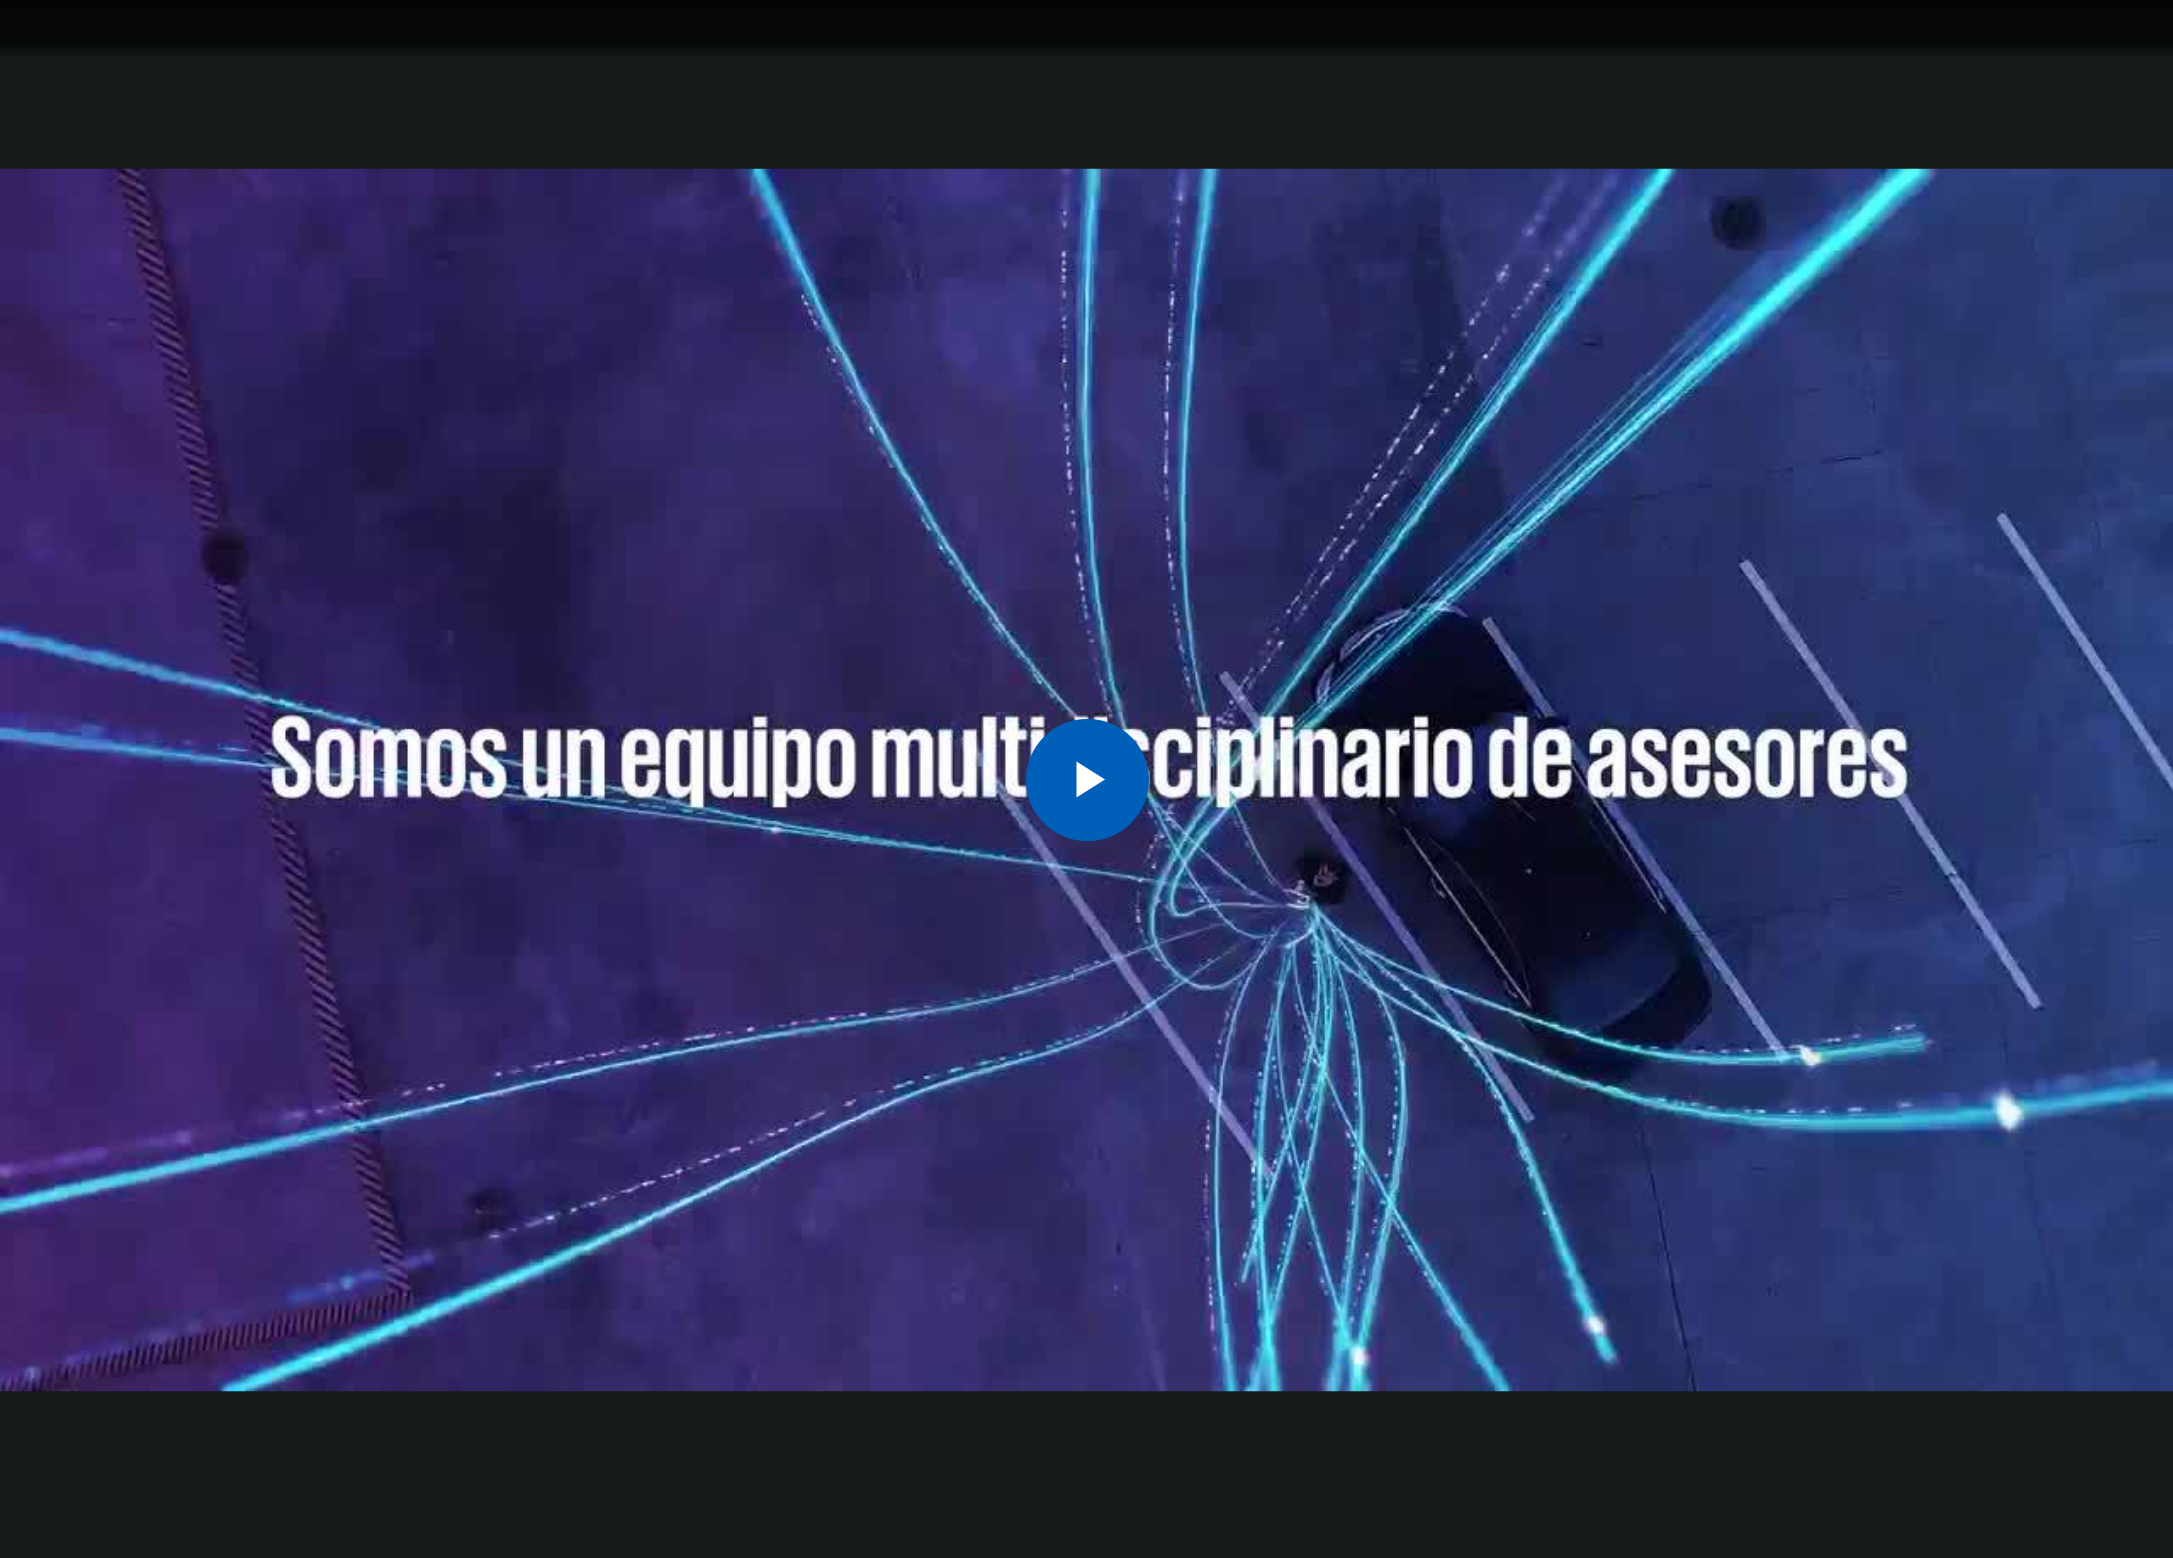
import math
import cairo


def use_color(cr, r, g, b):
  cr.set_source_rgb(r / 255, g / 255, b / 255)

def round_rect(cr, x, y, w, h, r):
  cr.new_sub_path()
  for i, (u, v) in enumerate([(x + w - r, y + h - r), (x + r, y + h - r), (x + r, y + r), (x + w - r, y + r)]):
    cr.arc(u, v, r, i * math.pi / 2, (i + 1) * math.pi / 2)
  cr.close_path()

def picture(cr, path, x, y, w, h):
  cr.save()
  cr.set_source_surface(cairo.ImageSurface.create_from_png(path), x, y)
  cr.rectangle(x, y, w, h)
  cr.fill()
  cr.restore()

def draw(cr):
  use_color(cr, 21, 27, 23)
  cr.paint()
  gradient = cairo.LinearGradient(1087, 0, 1087, 59)
  gradient.add_color_stop_rgba(0, 0.016, 0.02, 0.02, 1)
  gradient.add_color_stop_rgba(0.3, 0.024, 0.031, 0.027, 1)
  gradient.add_color_stop_rgba(0.7, 0.024, 0.031, 0.027, 1)
  gradient.add_color_stop_rgba(1, 0.082, 0.106, 0.09, 1)
  cr.set_source(gradient)
  cr.rectangle(0, 0, 2173, 57)
  cr.fill()
  picture(cr, "img_01.png", 0, 168, 2173, 1224)
  use_color(cr, 0, 95, 184)
  round_rect(cr, 1026, 719, 123, 122, 61)
  cr.fill()
  use_color(cr, 255, 255, 255)
  cr.new_path()
  cr.move_to(1076.5, 761.5)
  cr.line_to(1076.5, 797.5)
  cr.line_to(1105, 779.5)
  cr.close_path()
  cr.fill()


surface = cairo.ImageSurface(cairo.FORMAT_RGB24, 2173, 1558)
cr = cairo.Context(surface)
options = cairo.FontOptions()
options.set_hint_metrics(cairo.HINT_METRICS_OFF)
options.set_hint_style(cairo.HINT_STYLE_NONE)
cr.set_font_options(options)
cr.set_miter_limit(4)
draw(cr)
surface.write_to_png("out.png")
